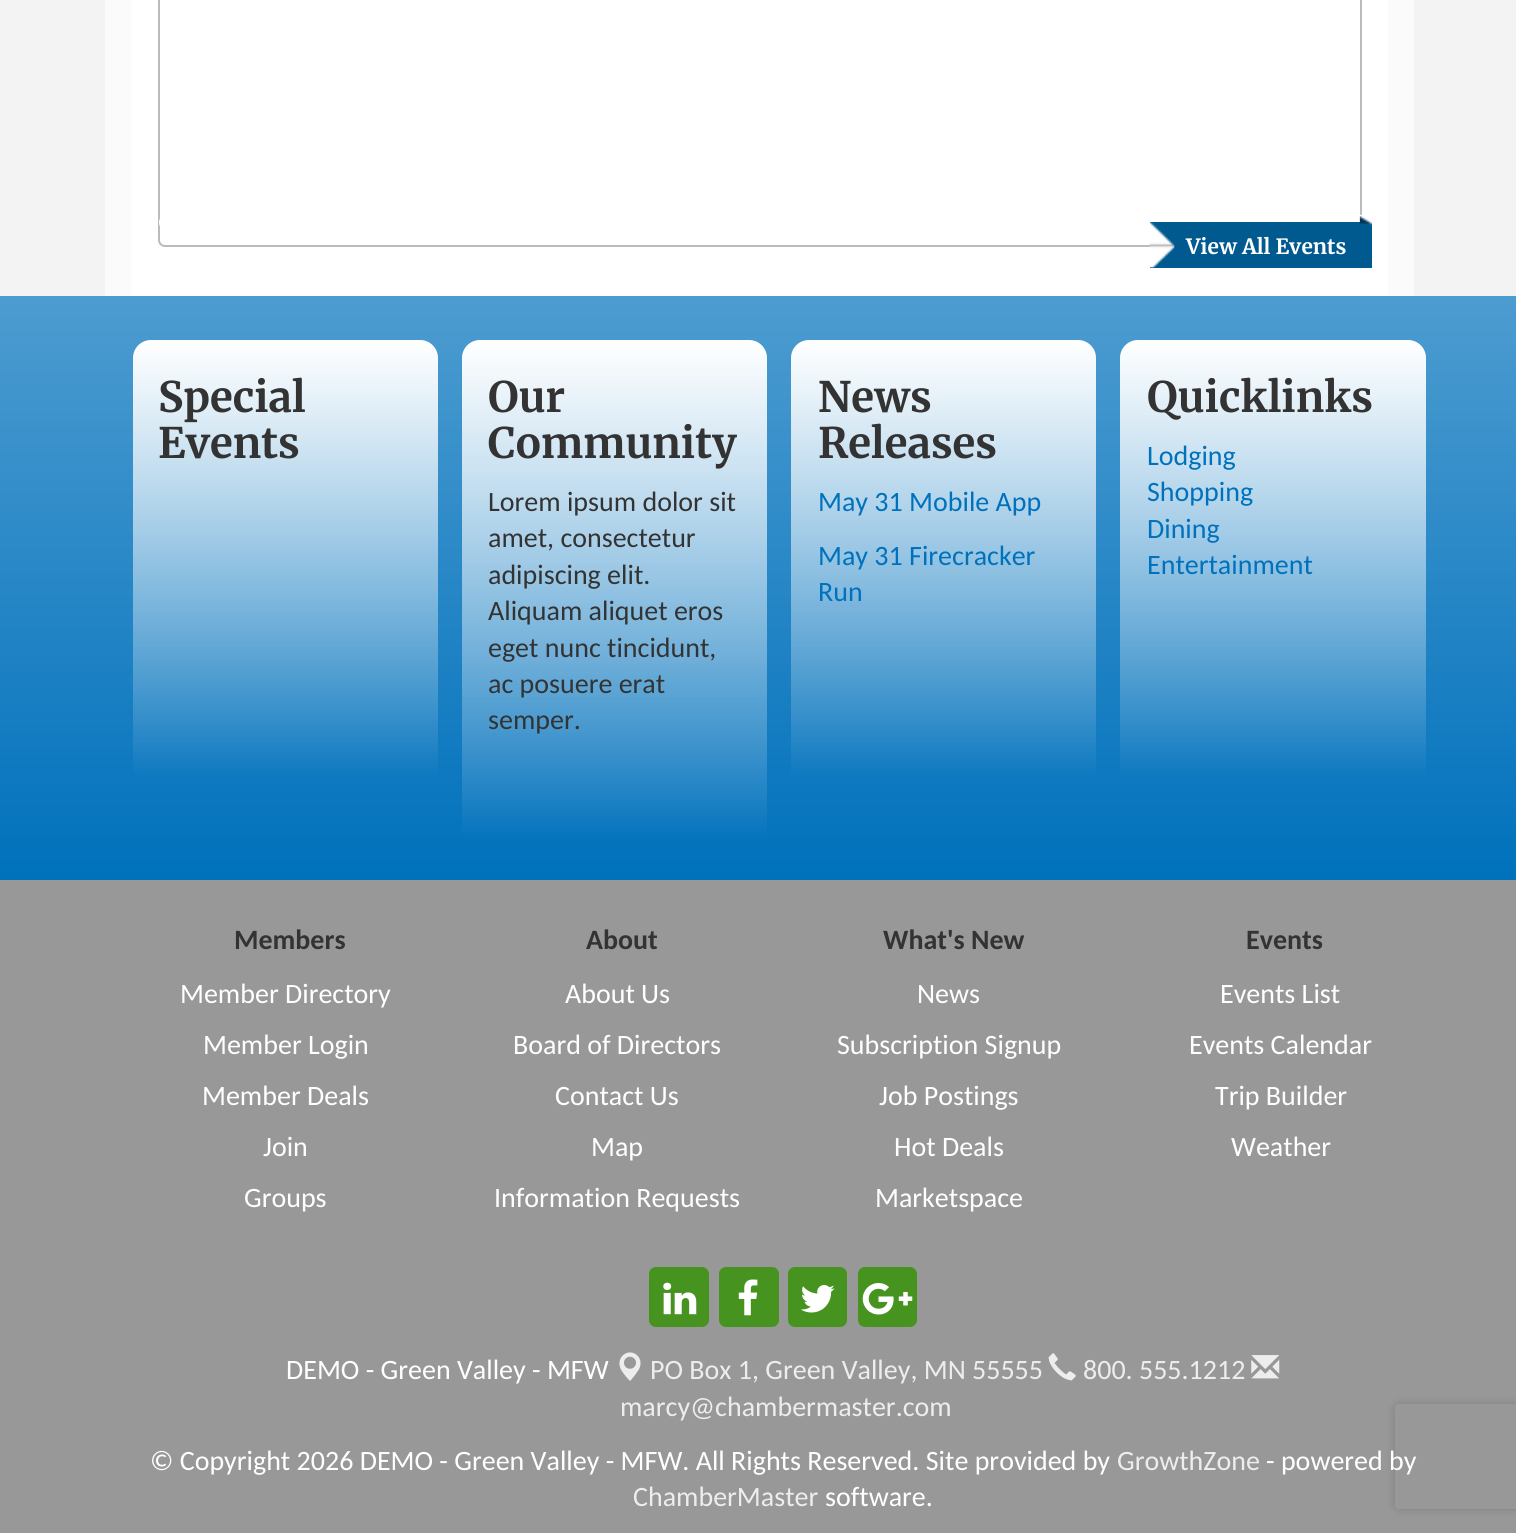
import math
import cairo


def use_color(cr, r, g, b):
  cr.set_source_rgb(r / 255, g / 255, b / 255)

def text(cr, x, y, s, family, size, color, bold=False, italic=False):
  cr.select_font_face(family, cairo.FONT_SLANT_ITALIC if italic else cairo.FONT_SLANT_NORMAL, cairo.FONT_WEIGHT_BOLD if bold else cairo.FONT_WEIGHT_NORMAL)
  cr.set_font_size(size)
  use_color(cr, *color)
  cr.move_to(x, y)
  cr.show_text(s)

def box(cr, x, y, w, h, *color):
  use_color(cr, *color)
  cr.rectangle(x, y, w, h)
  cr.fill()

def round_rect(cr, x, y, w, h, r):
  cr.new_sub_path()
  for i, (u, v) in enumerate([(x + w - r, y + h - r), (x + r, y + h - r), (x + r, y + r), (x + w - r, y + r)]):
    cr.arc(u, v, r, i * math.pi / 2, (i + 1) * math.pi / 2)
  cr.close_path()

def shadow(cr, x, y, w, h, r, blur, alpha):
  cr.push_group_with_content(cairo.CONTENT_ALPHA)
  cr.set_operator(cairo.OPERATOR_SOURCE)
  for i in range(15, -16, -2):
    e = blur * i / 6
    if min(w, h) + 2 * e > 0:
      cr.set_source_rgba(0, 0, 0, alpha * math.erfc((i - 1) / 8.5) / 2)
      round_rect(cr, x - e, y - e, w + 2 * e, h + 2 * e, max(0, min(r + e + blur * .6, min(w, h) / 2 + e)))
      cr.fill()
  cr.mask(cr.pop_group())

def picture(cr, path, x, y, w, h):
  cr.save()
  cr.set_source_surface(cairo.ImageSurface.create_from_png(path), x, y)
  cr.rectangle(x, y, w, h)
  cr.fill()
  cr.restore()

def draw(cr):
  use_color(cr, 243, 243, 243)
  cr.paint()
  box(cr, 105, 0, 1309, 296, 251, 251, 251)
  box(cr, 131, 0, 1257, 296, 255, 255, 255)
  round_rect(cr, 159, -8, 1202, 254, 6)
  use_color(cr, 187, 187, 187)
  cr.stroke()
  use_color(cr, 255, 255, 255)
  round_rect(cr, 159, 214, 1201, 17, 8.5)
  cr.fill()
  box(cr, 1150, 222, 210, 46, 0, 89, 143)
  picture(cr, "img_01.png", 1149, 222, 26, 46)
  box(cr, 1360, 216, 12, 52, 0, 89, 143)
  picture(cr, "img_02.png", 1359, 214, 13, 12)
  gradient = cairo.LinearGradient(759, 296, 759, 880)
  gradient.add_color_stop_rgba(0, 0.302, 0.612, 0.816, 1)
  gradient.add_color_stop_rgba(1, 0, 0.443, 0.737, 1)
  cr.set_source(gradient)
  cr.rectangle(0, 296, 1516, 584)
  cr.fill()
  gradient = cairo.LinearGradient(285, 340, 285, 777)
  gradient.add_color_stop_rgba(0, 1, 1, 1, 1)
  gradient.add_color_stop_rgba(1, 1, 1, 1, 0)
  cr.set_source(gradient)
  cr.new_path()
  cr.move_to(151, 340)
  cr.line_to(420, 340)
  cr.curve_to(430, 340, 438, 348, 438, 358)
  cr.line_to(438, 777)
  cr.line_to(133, 777)
  cr.line_to(133, 358)
  cr.curve_to(133, 348, 141, 340, 151, 340)
  cr.close_path()
  cr.fill()
  gradient = cairo.LinearGradient(614, 340, 614, 837)
  gradient.add_color_stop_rgba(0, 1, 1, 1, 1)
  gradient.add_color_stop_rgba(1, 1, 1, 1, 0)
  cr.set_source(gradient)
  cr.new_path()
  cr.move_to(480, 340)
  cr.line_to(749, 340)
  cr.curve_to(759, 340, 767, 348, 767, 358)
  cr.line_to(767, 837)
  cr.line_to(462, 837)
  cr.line_to(462, 358)
  cr.curve_to(462, 348, 470, 340, 480, 340)
  cr.close_path()
  cr.fill()
  gradient = cairo.LinearGradient(943, 340, 943, 777)
  gradient.add_color_stop_rgba(0, 1, 1, 1, 1)
  gradient.add_color_stop_rgba(1, 1, 1, 1, 0)
  cr.set_source(gradient)
  cr.new_path()
  cr.move_to(809, 340)
  cr.line_to(1078, 340)
  cr.curve_to(1088, 340, 1096, 348, 1096, 358)
  cr.line_to(1096, 777)
  cr.line_to(791, 777)
  cr.line_to(791, 358)
  cr.curve_to(791, 348, 799, 340, 809, 340)
  cr.close_path()
  cr.fill()
  gradient = cairo.LinearGradient(1273, 340, 1273, 777)
  gradient.add_color_stop_rgba(0, 1, 1, 1, 1)
  gradient.add_color_stop_rgba(1, 1, 1, 1, 0)
  cr.set_source(gradient)
  cr.new_path()
  cr.move_to(1138, 340)
  cr.line_to(1408, 340)
  cr.curve_to(1418, 340, 1426, 348, 1426, 358)
  cr.line_to(1426, 777)
  cr.line_to(1120, 777)
  cr.line_to(1120, 358)
  cr.curve_to(1120, 348, 1128, 340, 1138, 340)
  cr.close_path()
  cr.fill()
  box(cr, 0, 880, 1516, 653, 152, 152, 152)
  use_color(cr, 70, 147, 32)
  round_rect(cr, 650, 1268, 58, 58, 6)
  cr.fill_preserve()
  cr.stroke()
  picture(cr, "img_03.png", 663, 1282, 34, 33)
  round_rect(cr, 720, 1268, 58, 58, 6)
  cr.fill_preserve()
  cr.stroke()
  picture(cr, "img_04.png", 738, 1279, 20, 37)
  round_rect(cr, 789, 1268, 57, 58, 6)
  cr.fill_preserve()
  cr.stroke()
  picture(cr, "img_05.png", 801, 1285, 34, 28)
  round_rect(cr, 859, 1268, 57, 58, 6)
  cr.fill_preserve()
  cr.stroke()
  picture(cr, "img_06.png", 862, 1283, 51, 32)
  picture(cr, "img_07.png", 619, 1352, 22, 29)
  picture(cr, "img_08.png", 1048, 1353, 28, 28)
  picture(cr, "img_09.png", 1251, 1355, 29, 24)
  cr.save()
  cr.set_fill_rule(cairo.FILL_RULE_EVEN_ODD)
  cr.new_path()
  cr.move_to(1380, 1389)
  cr.line_to(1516, 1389)
  cr.line_to(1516, 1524)
  cr.line_to(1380, 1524)
  cr.close_path()
  cr.move_to(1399, 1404)
  cr.line_to(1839, 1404)
  cr.curve_to(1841, 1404, 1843, 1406, 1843, 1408)
  cr.line_to(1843, 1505)
  cr.curve_to(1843, 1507, 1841, 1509, 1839, 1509)
  cr.line_to(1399, 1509)
  cr.curve_to(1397, 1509, 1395, 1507, 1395, 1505)
  cr.line_to(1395, 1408)
  cr.curve_to(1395, 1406, 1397, 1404, 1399, 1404)
  cr.close_path()
  cr.clip()
  use_color(cr, 128, 128, 128)
  shadow(cr, 1395, 1404, 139, 105, 4, 4.5, 1)
  cr.restore()
  text(cr, 1186, 254, "View All Events", "Merriweather", 21, (255, 255, 255), bold=True)
  text(cr, 158, 412, "Special", "Merriweather", 42, (51, 51, 51), bold=True)
  text(cr, 158, 458, "Events", "Merriweather", 42, (51, 51, 51), bold=True)
  text(cr, 488, 412, "Our", "Merriweather", 42, (51, 51, 51), bold=True)
  text(cr, 488, 458, "Community", "Merriweather", 42, (51, 51, 51), bold=True)
  text(cr, 488, 511, "Lorem ipsum dolor sit", "Carlito", 28, (51, 51, 51))
  text(cr, 488, 547, "amet, consectetur", "Carlito", 28, (51, 51, 51))
  text(cr, 488, 584, "adipiscing elit.", "Carlito", 28, (51, 51, 51))
  text(cr, 488, 620, "Aliquam aliquet eros", "Carlito", 28, (51, 51, 51))
  text(cr, 488, 657, "eget nunc tincidunt,", "Carlito", 28, (51, 51, 51))
  text(cr, 488, 693, "ac posuere erat", "Carlito", 28, (51, 51, 51))
  text(cr, 488, 729, "semper.", "Carlito", 28, (51, 51, 51))
  text(cr, 818, 412, "News", "Merriweather", 42, (51, 51, 51), bold=True)
  text(cr, 818, 458, "Releases", "Merriweather", 42, (51, 51, 51), bold=True)
  text(cr, 818, 511, "May 31 Mobile App", "Carlito", 28, (0, 113, 188))
  text(cr, 818, 565, "May 31 Firecracker", "Carlito", 28, (0, 113, 188))
  text(cr, 818, 601, "Run", "Carlito", 28, (0, 113, 188))
  text(cr, 1147, 412, "Quicklinks", "Merriweather", 42, (51, 51, 51), bold=True)
  text(cr, 1147, 465, "Lodging", "Carlito", 28, (0, 113, 188))
  text(cr, 1147, 501, "Shopping", "Carlito", 28, (0, 113, 188))
  text(cr, 1147, 538, "Dining", "Carlito", 28, (0, 113, 188))
  text(cr, 1147, 574, "Entertainment", "Carlito", 28, (0, 113, 188))
  text(cr, 234, 949, "Members", "Carlito", 28, (51, 51, 51), bold=True)
  text(cr, 180, 1003, "Member Directory", "Carlito", 28, (255, 255, 255))
  text(cr, 203, 1054, "Member Login", "Carlito", 28, (255, 255, 255))
  text(cr, 202, 1105, "Member Deals", "Carlito", 28, (255, 255, 255))
  text(cr, 263, 1156, "Join", "Carlito", 28, (255, 255, 255))
  text(cr, 244, 1207, "Groups", "Carlito", 28, (255, 255, 255))
  text(cr, 586, 949, "About", "Carlito", 28, (51, 51, 51), bold=True)
  text(cr, 565, 1003, "About Us", "Carlito", 28, (255, 255, 255))
  text(cr, 513, 1054, "Board of Directors", "Carlito", 28, (255, 255, 255))
  text(cr, 555, 1105, "Contact Us", "Carlito", 28, (255, 255, 255))
  text(cr, 591, 1156, "Map", "Carlito", 28, (255, 255, 255))
  text(cr, 494, 1207, "Information Requests", "Carlito", 28, (255, 255, 255))
  text(cr, 883, 949, "What's New", "Carlito", 28, (51, 51, 51), bold=True)
  text(cr, 917, 1003, "News", "Carlito", 28, (255, 255, 255))
  text(cr, 837, 1054, "Subscription Signup", "Carlito", 28, (255, 255, 255))
  text(cr, 879, 1105, "Job Postings", "Carlito", 28, (255, 255, 255))
  text(cr, 894, 1156, "Hot Deals", "Carlito", 28, (255, 255, 255))
  text(cr, 875, 1207, "Marketspace", "Carlito", 28, (255, 255, 255))
  text(cr, 1246, 949, "Events", "Carlito", 28, (51, 51, 51), bold=True)
  text(cr, 1220, 1003, "Events List", "Carlito", 28, (255, 255, 255))
  text(cr, 1189, 1054, "Events Calendar", "Carlito", 28, (255, 255, 255))
  text(cr, 1215, 1105, "Trip Builder", "Carlito", 28, (255, 255, 255))
  text(cr, 1231, 1156, "Weather", "Carlito", 28, (255, 255, 255))
  text(cr, 286, 1379, "DEMO - Green Valley - MFW", "Carlito", 28, (255, 255, 255))
  text(cr, 650, 1379, "PO Box 1, Green Valley, MN 55555", "Carlito", 28, (237, 237, 237))
  text(cr, 1083, 1379, "800. 555.1212", "Carlito", 28, (237, 237, 237))
  text(cr, 620, 1416, "marcy@chambermaster.com", "Carlito", 28, (237, 237, 237))
  text(cr, 150, 1470, "© Copyright 2026 DEMO - Green Valley - MFW. All Rights Reserved. Site provided by", "Carlito", 28, (255, 255, 255))
  text(cr, 1117, 1470, "GrowthZone", "Carlito", 28, (237, 237, 237))
  text(cr, 1266, 1470, "- powered by", "Carlito", 28, (255, 255, 255))
  text(cr, 633, 1506, "ChamberMaster", "Carlito", 28, (237, 237, 237))
  text(cr, 825, 1506, "software.", "Carlito", 28, (255, 255, 255))


surface = cairo.ImageSurface(cairo.FORMAT_RGB24, 1516, 1533)
cr = cairo.Context(surface)
options = cairo.FontOptions()
options.set_hint_metrics(cairo.HINT_METRICS_OFF)
options.set_hint_style(cairo.HINT_STYLE_NONE)
cr.set_font_options(options)
cr.set_miter_limit(4)
draw(cr)
surface.write_to_png("out.png")
